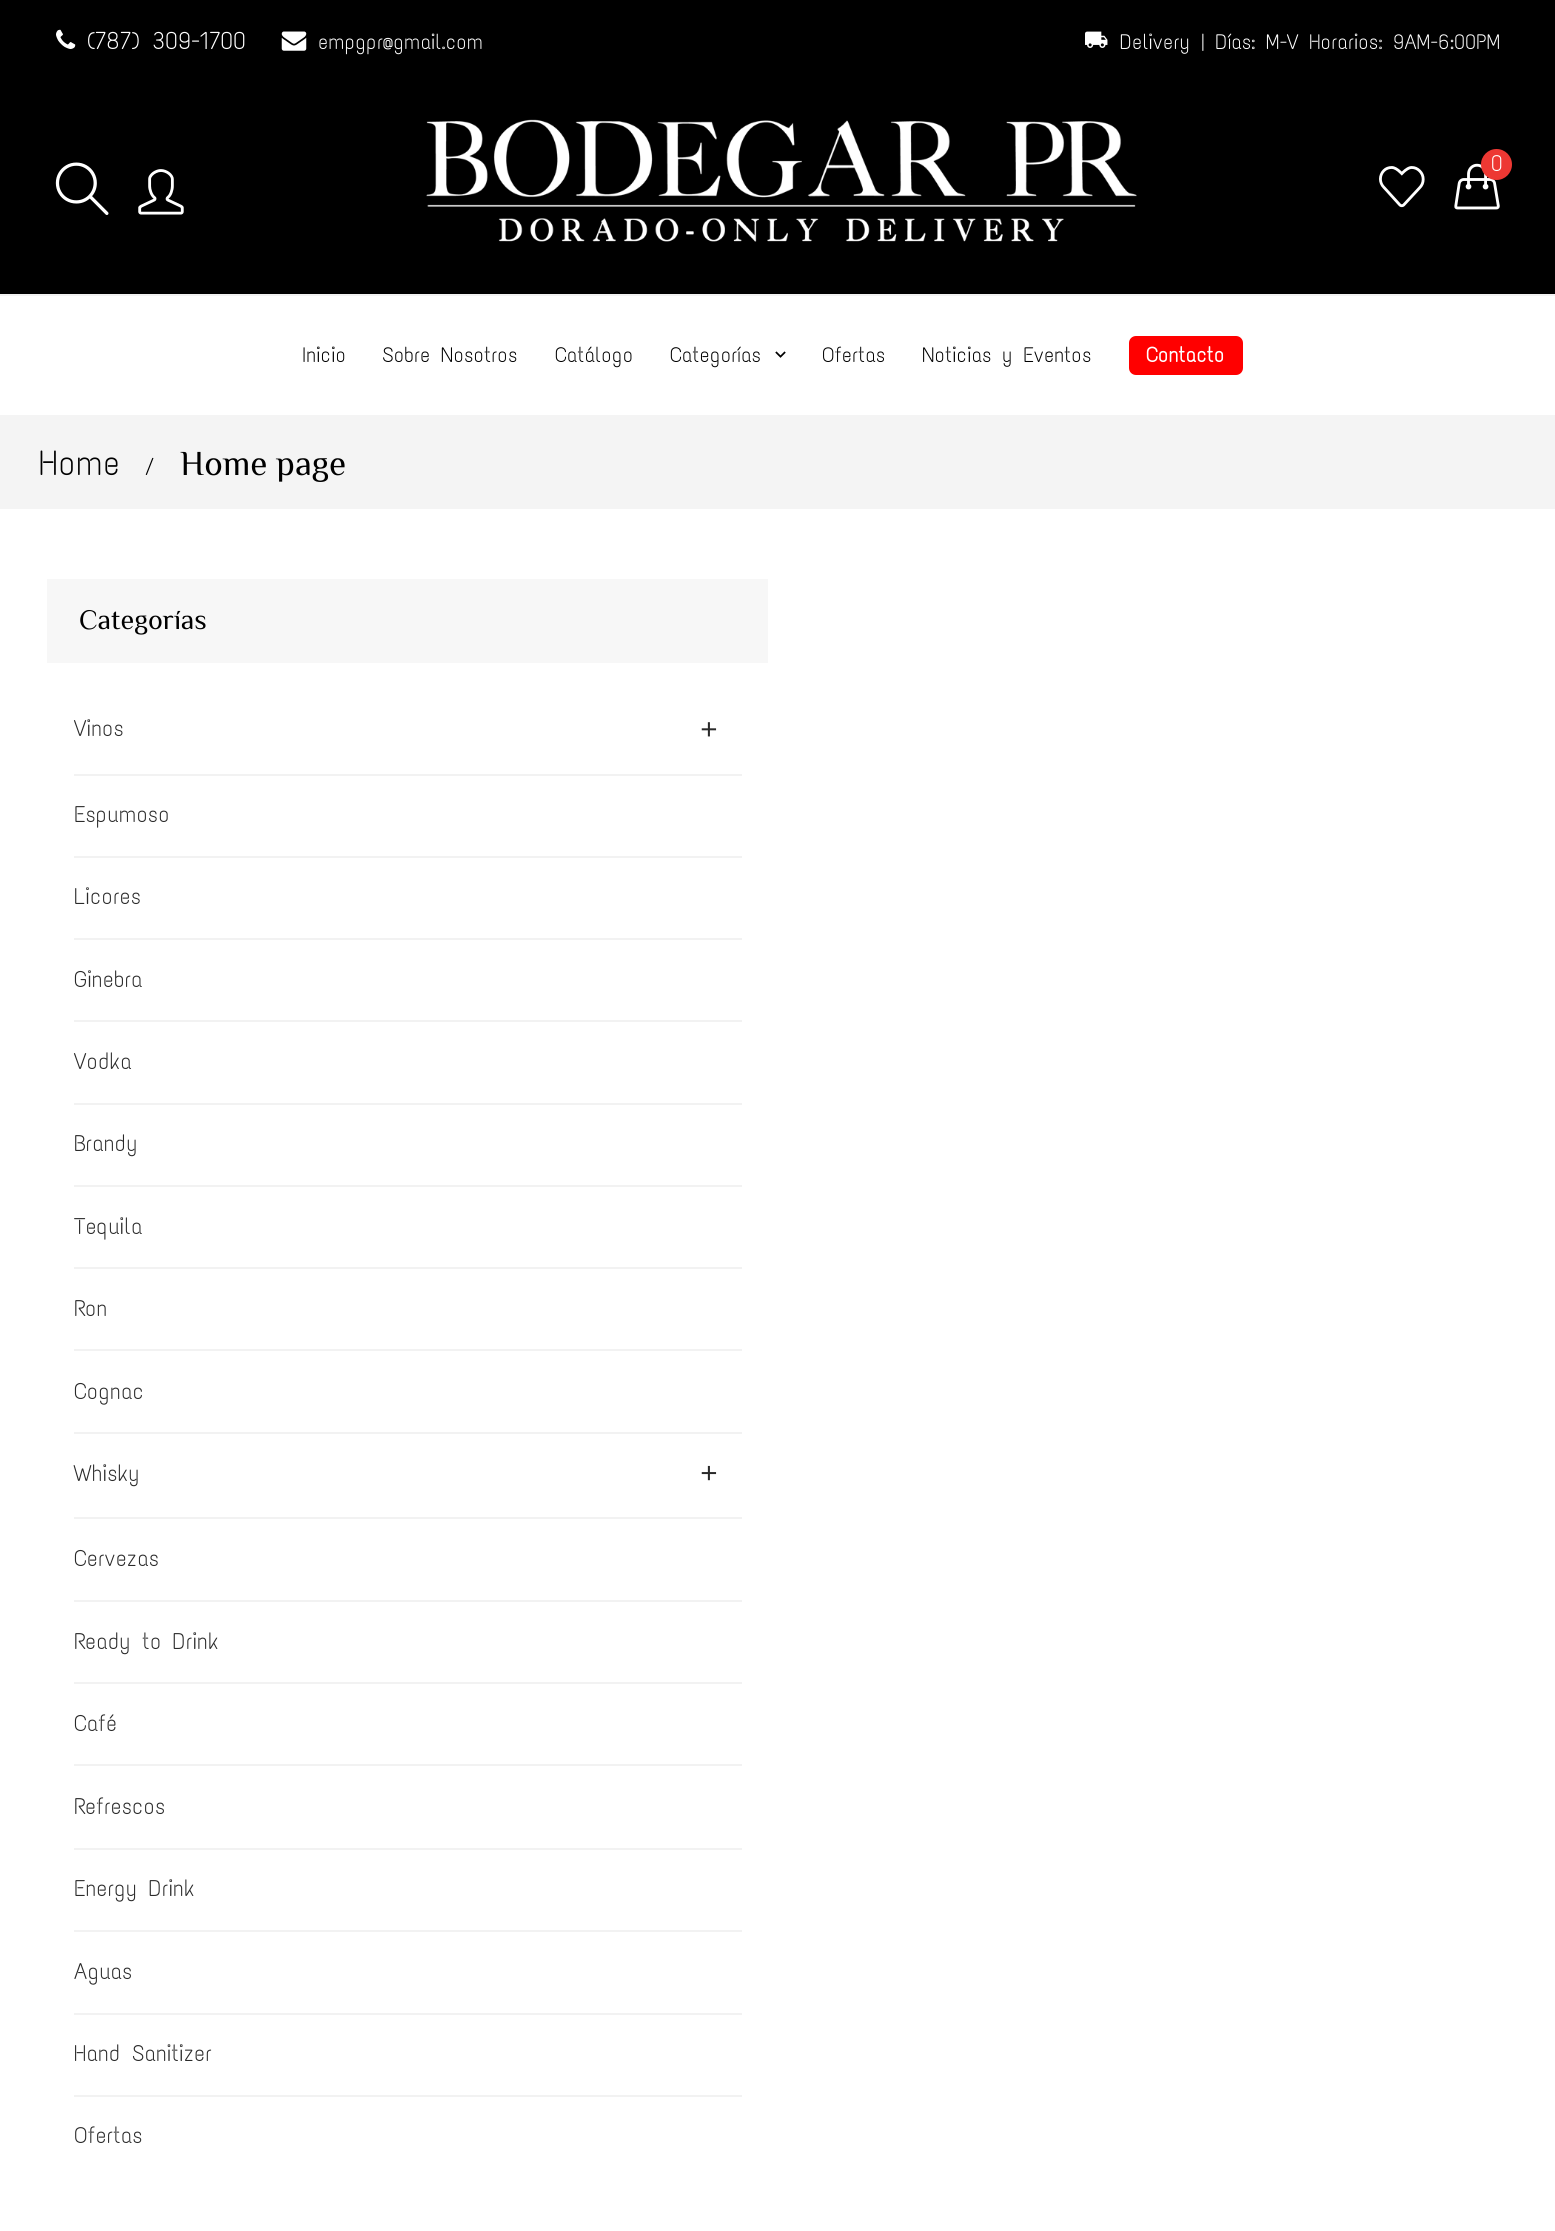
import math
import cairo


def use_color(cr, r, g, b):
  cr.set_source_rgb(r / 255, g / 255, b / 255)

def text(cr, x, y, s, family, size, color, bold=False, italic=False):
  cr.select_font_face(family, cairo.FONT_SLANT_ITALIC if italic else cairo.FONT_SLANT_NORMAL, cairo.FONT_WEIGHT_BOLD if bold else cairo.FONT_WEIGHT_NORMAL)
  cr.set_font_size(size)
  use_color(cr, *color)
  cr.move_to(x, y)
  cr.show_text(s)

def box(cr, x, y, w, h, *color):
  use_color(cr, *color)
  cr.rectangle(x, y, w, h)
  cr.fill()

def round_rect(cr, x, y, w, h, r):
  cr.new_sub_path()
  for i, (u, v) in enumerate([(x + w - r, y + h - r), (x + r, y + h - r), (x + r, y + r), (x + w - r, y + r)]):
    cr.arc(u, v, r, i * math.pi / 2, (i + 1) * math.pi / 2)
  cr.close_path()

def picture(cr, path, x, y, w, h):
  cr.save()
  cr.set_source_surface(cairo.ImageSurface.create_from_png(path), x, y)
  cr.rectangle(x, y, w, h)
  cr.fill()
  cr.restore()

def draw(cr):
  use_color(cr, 255, 255, 255)
  cr.paint()
  box(cr, 0, 0, 1555, 294, 0, 0, 0)
  picture(cr, "img_01.png", 56, 29, 20, 20)
  picture(cr, "img_02.png", 281, 31, 26, 20)
  picture(cr, "img_03.png", 1085, 31, 23, 17)
  picture(cr, "img_04.png", 55, 162, 54, 53)
  picture(cr, "img_05.png", 138, 169, 46, 46)
  picture(cr, "img_06.png", 426, 119, 711, 123)
  picture(cr, "img_07.png", 1454, 163, 46, 47)
  use_color(cr, 237, 56, 51)
  cr.arc(1496.5, 164.5, 15.5, 0, 2 * math.pi)
  cr.fill()
  picture(cr, "img_08.png", 1379, 166, 46, 42)
  box(cr, 0, 294, 1555, 2, 242, 242, 242)
  picture(cr, "img_09.png", 775, 351, 11, 7)
  use_color(cr, 255, 0, 0)
  round_rect(cr, 1129, 336, 114, 39, 7)
  cr.fill()
  box(cr, 0, 415, 1555, 94, 244, 244, 244)
  box(cr, 47, 579, 721, 84, 247, 247, 247)
  box(cr, 74, 774, 668, 2, 242, 242, 242)
  picture(cr, "img_10.png", 701, 722, 16, 15)
  box(cr, 74, 856, 668, 2, 242, 242, 242)
  box(cr, 74, 938, 668, 2, 242, 242, 242)
  box(cr, 74, 1020, 668, 2, 242, 242, 242)
  box(cr, 74, 1103, 668, 2, 242, 242, 242)
  box(cr, 74, 1185, 668, 2, 242, 242, 242)
  box(cr, 74, 1267, 668, 2, 242, 242, 242)
  box(cr, 74, 1349, 668, 2, 242, 242, 242)
  box(cr, 74, 1432, 668, 2, 242, 242, 242)
  box(cr, 74, 1517, 668, 2, 242, 242, 242)
  picture(cr, "img_11.png", 701, 1465, 16, 16)
  box(cr, 74, 1600, 668, 2, 242, 242, 242)
  box(cr, 74, 1682, 668, 2, 242, 242, 242)
  box(cr, 74, 1764, 668, 2, 242, 242, 242)
  box(cr, 74, 1848, 668, 2, 242, 242, 242)
  box(cr, 74, 1930, 668, 2, 242, 242, 242)
  box(cr, 74, 2013, 668, 2, 242, 242, 242)
  box(cr, 74, 2095, 668, 2, 242, 242, 242)
  text(cr, 87, 49, "(787) 309-1700", "Text Me One", 24.5, (255, 255, 255))
  text(cr, 318, 49, "empgpr@gmail.com", "Text Me One", 21, (255, 255, 255))
  text(cr, 1120, 49, "Delivery | Días: M-V Horarios: 9AM-6:00PM", "Text Me One", 21, (255, 255, 255))
  text(cr, 1491, 171, "0", "Text Me One", 22.75, (255, 255, 255))
  text(cr, 302, 362, "Inicio", "Text Me One", 21, (0, 0, 0))
  text(cr, 382, 362, "Sobre Nosotros", "Text Me One", 21, (0, 0, 0))
  text(cr, 555, 362, "Catálogo", "Text Me One", 21, (0, 0, 0))
  text(cr, 670, 362, "Categorías", "Text Me One", 21, (0, 0, 0))
  text(cr, 822, 362, "Ofertas", "Text Me One", 21, (0, 0, 0))
  text(cr, 922, 362, "Noticias y Eventos", "Text Me One", 21, (0, 0, 0))
  text(cr, 1146, 362, "Contacto", "Text Me One", 21, (255, 255, 255), bold=True)
  text(cr, 39, 475, "Home", "Text Me One", 35, (0, 0, 0))
  text(cr, 146, 475, "/", "Text Me One", 24.5, (0, 0, 0))
  text(cr, 180, 475, "Home page", "Philosopher", 35, (0, 0, 0))
  text(cr, 79, 629, "Categorías", "Philosopher", 28, (0, 0, 0))
  text(cr, 74, 736, "Vinos", "Text Me One", 22.75, (42, 42, 42))
  text(cr, 74, 822, "Espumoso", "Text Me One", 22.75, (42, 42, 42))
  text(cr, 74, 904, "Licores", "Text Me One", 22.75, (42, 42, 42))
  text(cr, 74, 987, "Ginebra", "Text Me One", 22.75, (42, 42, 42))
  text(cr, 74, 1069, "Vodka", "Text Me One", 22.75, (42, 42, 42))
  text(cr, 74, 1151, "Brandy", "Text Me One", 22.75, (42, 42, 42))
  text(cr, 74, 1234, "Tequila", "Text Me One", 22.75, (42, 42, 42))
  text(cr, 74, 1316, "Ron", "Text Me One", 22.75, (42, 42, 42))
  text(cr, 74, 1399, "Cognac", "Text Me One", 22.75, (42, 42, 42))
  text(cr, 74, 1481, "Whisky", "Text Me One", 22.75, (42, 42, 42))
  text(cr, 74, 1566, "Cervezas", "Text Me One", 22.75, (42, 42, 42))
  text(cr, 74, 1649, "Ready to Drink", "Text Me One", 22.75, (42, 42, 42))
  text(cr, 74, 1731, "Café", "Text Me One", 22.75, (42, 42, 42))
  text(cr, 74, 1814, "Refrescos", "Text Me One", 22.75, (42, 42, 42))
  text(cr, 74, 1896, "Energy Drink", "Text Me One", 22.75, (42, 42, 42))
  text(cr, 74, 1979, "Aguas", "Text Me One", 22.75, (42, 42, 42))
  text(cr, 74, 2061, "Hand Sanitizer", "Text Me One", 22.75, (42, 42, 42))
  text(cr, 74, 2143, "Ofertas", "Text Me One", 22.75, (42, 42, 42))


surface = cairo.ImageSurface(cairo.FORMAT_RGB24, 1555, 2231)
cr = cairo.Context(surface)
options = cairo.FontOptions()
options.set_hint_metrics(cairo.HINT_METRICS_OFF)
options.set_hint_style(cairo.HINT_STYLE_NONE)
cr.set_font_options(options)
cr.set_miter_limit(4)
draw(cr)
surface.write_to_png("out.png")
